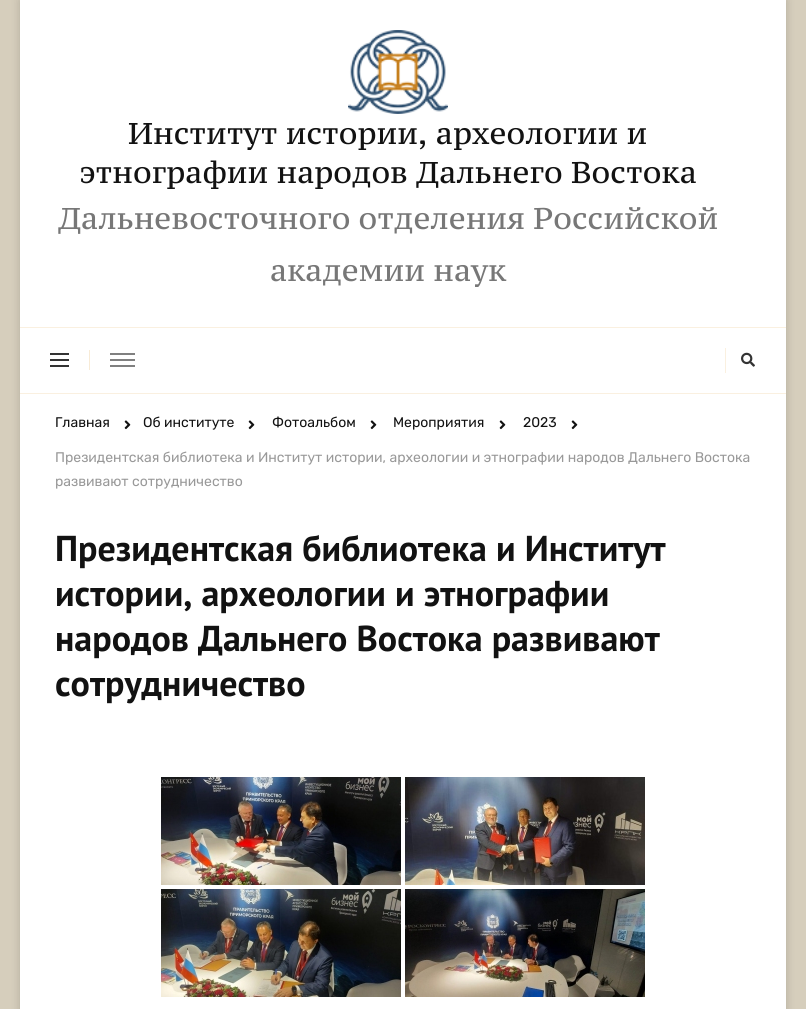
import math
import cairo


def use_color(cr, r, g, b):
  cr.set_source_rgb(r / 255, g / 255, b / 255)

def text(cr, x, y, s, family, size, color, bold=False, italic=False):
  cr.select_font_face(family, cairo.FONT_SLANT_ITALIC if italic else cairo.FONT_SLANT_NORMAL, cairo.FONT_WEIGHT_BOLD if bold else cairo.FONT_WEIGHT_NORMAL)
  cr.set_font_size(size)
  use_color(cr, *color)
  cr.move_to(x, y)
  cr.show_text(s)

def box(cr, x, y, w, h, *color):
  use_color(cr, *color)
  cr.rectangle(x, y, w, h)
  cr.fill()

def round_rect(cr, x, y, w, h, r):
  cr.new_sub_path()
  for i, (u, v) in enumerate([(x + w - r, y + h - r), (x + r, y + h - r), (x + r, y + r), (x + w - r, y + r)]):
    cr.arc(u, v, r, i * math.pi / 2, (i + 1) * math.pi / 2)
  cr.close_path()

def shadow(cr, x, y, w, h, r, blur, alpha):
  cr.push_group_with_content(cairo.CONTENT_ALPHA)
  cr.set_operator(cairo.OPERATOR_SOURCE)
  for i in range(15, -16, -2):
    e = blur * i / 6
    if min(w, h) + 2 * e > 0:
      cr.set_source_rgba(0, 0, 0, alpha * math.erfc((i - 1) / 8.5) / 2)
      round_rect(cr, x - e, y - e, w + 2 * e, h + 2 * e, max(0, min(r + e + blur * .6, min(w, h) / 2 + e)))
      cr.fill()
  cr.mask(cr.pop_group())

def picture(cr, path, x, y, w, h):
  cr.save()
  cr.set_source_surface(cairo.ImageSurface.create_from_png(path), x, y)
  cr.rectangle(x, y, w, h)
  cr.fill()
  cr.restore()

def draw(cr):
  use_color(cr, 214, 206, 188)
  cr.paint()
  use_color(cr, 0, 0, 0)
  shadow(cr, 20, 0, 766, 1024, 0, 5, 0.16)
  box(cr, 20, 0, 766, 1009, 255, 255, 255)
  picture(cr, "img_01.png", 348, 30, 100, 84)
  box(cr, 20, 327, 766, 1, 250, 240, 224)
  box(cr, 20, 393, 766, 1, 250, 240, 224)
  box(cr, 89, 350, 1, 20, 248, 235, 214)
  box(cr, 50, 353, 19, 2, 51, 51, 51)
  box(cr, 50, 359, 19, 2, 51, 51, 51)
  box(cr, 50, 365, 19, 2, 51, 51, 51)
  box(cr, 110, 353, 25, 2, 128, 128, 128)
  box(cr, 110, 359, 25, 2, 128, 128, 128)
  box(cr, 110, 365, 25, 2, 128, 128, 128)
  box(cr, 725, 348, 1, 25, 250, 240, 224)
  picture(cr, "img_02.png", 741, 352, 14, 15)
  picture(cr, "img_03.png", 124, 420, 7, 10)
  picture(cr, "img_03.png", 248, 420, 7, 10)
  picture(cr, "img_03.png", 370, 420, 7, 10)
  picture(cr, "img_03.png", 499, 420, 7, 10)
  picture(cr, "img_03.png", 571, 420, 7, 10)
  picture(cr, "img_04.png", 161, 777, 240, 108)
  picture(cr, "img_05.png", 405, 777, 240, 108)
  picture(cr, "img_06.png", 161, 889, 240, 108)
  picture(cr, "img_07.png", 405, 889, 240, 108)
  text(cr, 128, 144, "Институт истории, археологии и", "PT Serif Caption", 30, (18, 18, 18))
  text(cr, 79, 183, "этнографии народов Дальнего Востока", "PT Serif Caption", 30, (18, 18, 18))
  text(cr, 58, 229, "Дальневосточного отделения Российской", "PT Serif Caption", 30, (119, 119, 119))
  text(cr, 270, 281, "академии наук", "PT Serif Caption", 30, (119, 119, 119))
  text(cr, 55, 427, "Главная", "Rubik", 14, (18, 18, 18))
  text(cr, 143, 427, "Об институте", "Rubik", 14, (18, 18, 18))
  text(cr, 272, 427, "Фотоальбом", "Rubik", 14, (18, 18, 18))
  text(cr, 393, 427, "Мероприятия", "Rubik", 14, (18, 18, 18))
  text(cr, 523, 427, "2023", "Rubik", 14, (18, 18, 18))
  text(cr, 55, 462, "Президентская библиотека и Институт истории, археологии и этнографии народов Дальнего Востока", "Rubik", 14, (153, 153, 153))
  text(cr, 55, 486, "развивают сотрудничество", "Rubik", 14, (153, 153, 153))
  text(cr, 55, 561, "Президентская библиотека и Институт", "PT Sans", 36, (18, 18, 18), bold=True)
  text(cr, 55, 606, "истории, археологии и этнографии", "PT Sans", 36, (18, 18, 18), bold=True)
  text(cr, 55, 651, "народов Дальнего Востока развивают", "PT Sans", 36, (18, 18, 18), bold=True)
  text(cr, 55, 696, "сотрудничество", "PT Sans", 36, (18, 18, 18), bold=True)


surface = cairo.ImageSurface(cairo.FORMAT_RGB24, 806, 1009)
cr = cairo.Context(surface)
options = cairo.FontOptions()
options.set_hint_metrics(cairo.HINT_METRICS_OFF)
options.set_hint_style(cairo.HINT_STYLE_NONE)
cr.set_font_options(options)
cr.set_miter_limit(4)
draw(cr)
surface.write_to_png("out.png")
